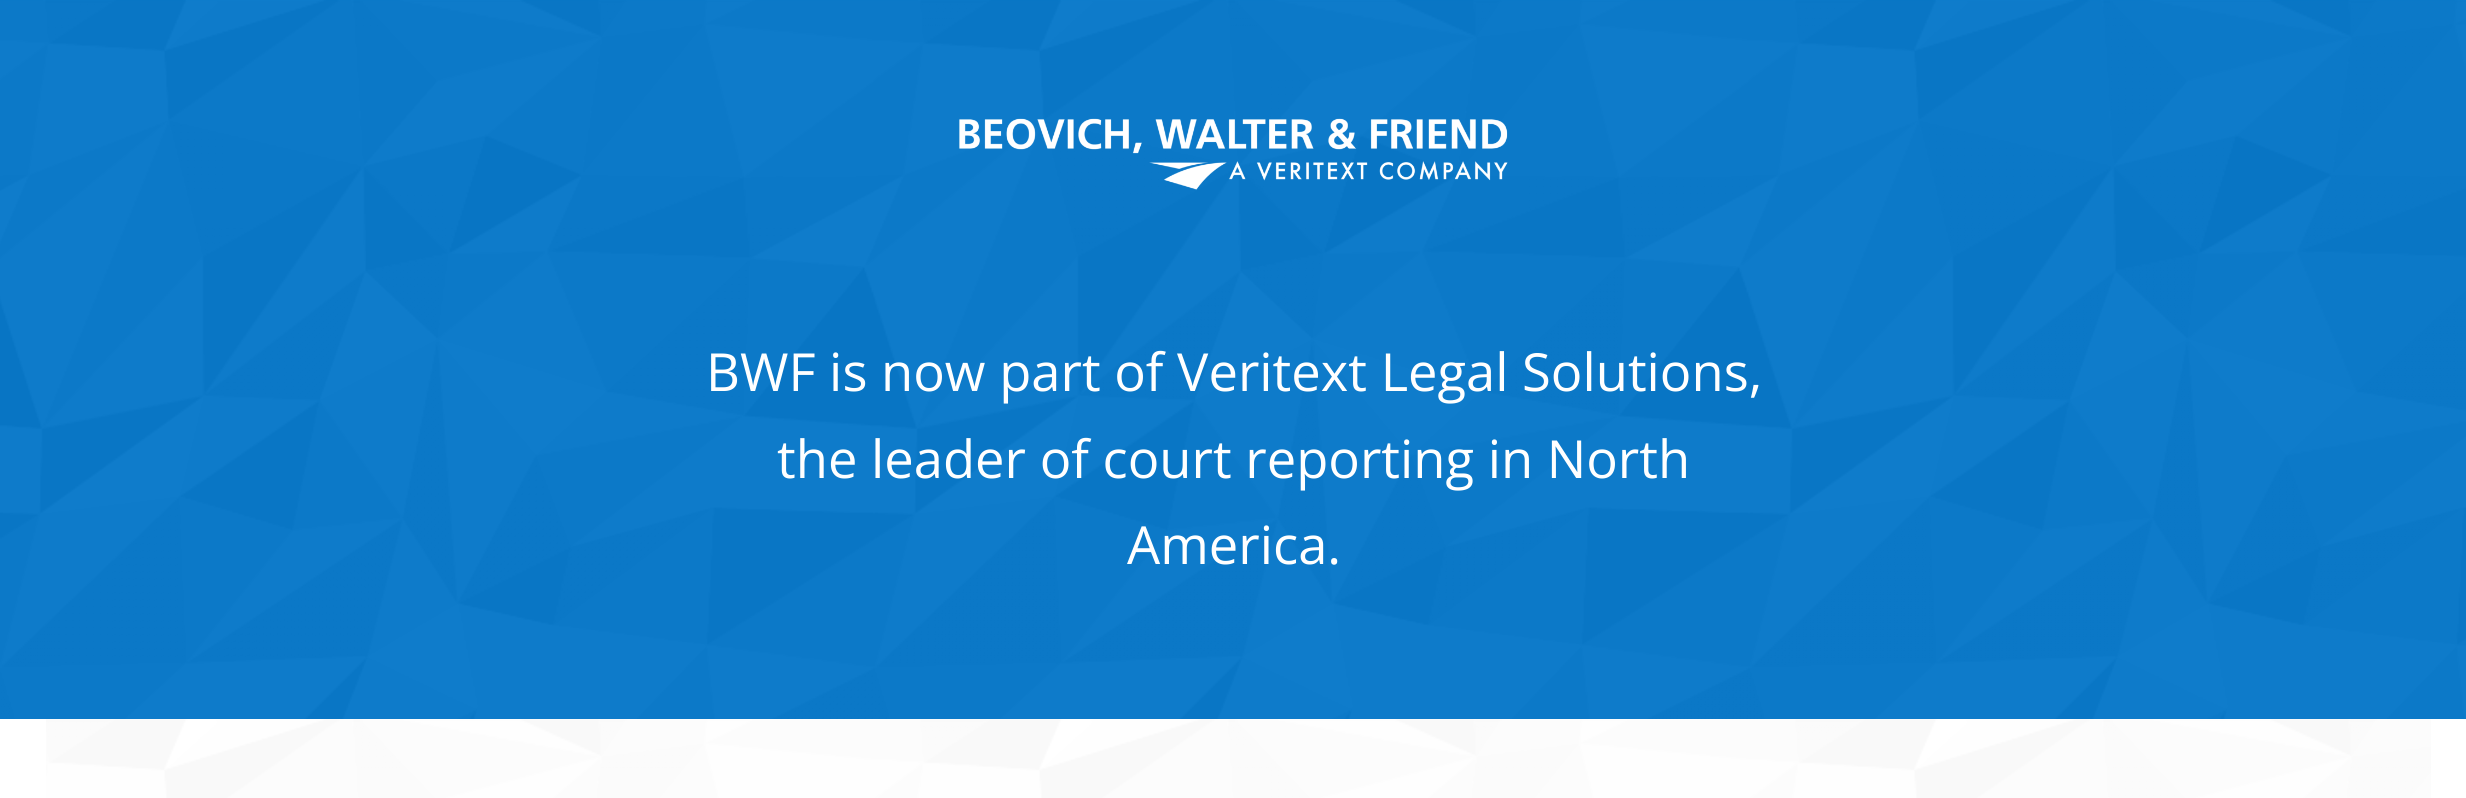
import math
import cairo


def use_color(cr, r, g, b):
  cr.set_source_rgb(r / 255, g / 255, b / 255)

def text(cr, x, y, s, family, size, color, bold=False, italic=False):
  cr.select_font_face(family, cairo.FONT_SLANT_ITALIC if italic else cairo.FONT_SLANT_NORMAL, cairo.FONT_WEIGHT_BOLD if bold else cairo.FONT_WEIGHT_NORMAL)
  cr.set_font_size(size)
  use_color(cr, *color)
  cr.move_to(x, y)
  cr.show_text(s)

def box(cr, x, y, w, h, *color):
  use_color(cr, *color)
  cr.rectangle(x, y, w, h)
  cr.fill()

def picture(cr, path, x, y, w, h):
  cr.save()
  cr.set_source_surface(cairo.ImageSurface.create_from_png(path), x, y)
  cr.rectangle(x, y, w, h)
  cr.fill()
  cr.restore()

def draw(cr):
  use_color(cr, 0, 116, 200)
  cr.paint()
  picture(cr, "img_01.png", 0, 0, 2466, 719)
  picture(cr, "img_02.png", 959, 118, 549, 72)
  box(cr, 0, 719, 2466, 79, 255, 255, 255)
  picture(cr, "img_03.png", 46, 719, 2385, 79)
  text(cr, 706, 391, "BWF is now part of Veritext Legal Solutions,", "Open Sans", 52.5, (255, 255, 255))
  text(cr, 777, 478, "the leader of court reporting in North", "Open Sans", 52.5, (255, 255, 255))
  text(cr, 1127, 564, "America.", "Open Sans", 52.5, (255, 255, 255))


surface = cairo.ImageSurface(cairo.FORMAT_RGB24, 2466, 798)
cr = cairo.Context(surface)
options = cairo.FontOptions()
options.set_hint_metrics(cairo.HINT_METRICS_OFF)
options.set_hint_style(cairo.HINT_STYLE_NONE)
cr.set_font_options(options)
cr.set_miter_limit(4)
draw(cr)
surface.write_to_png("out.png")
